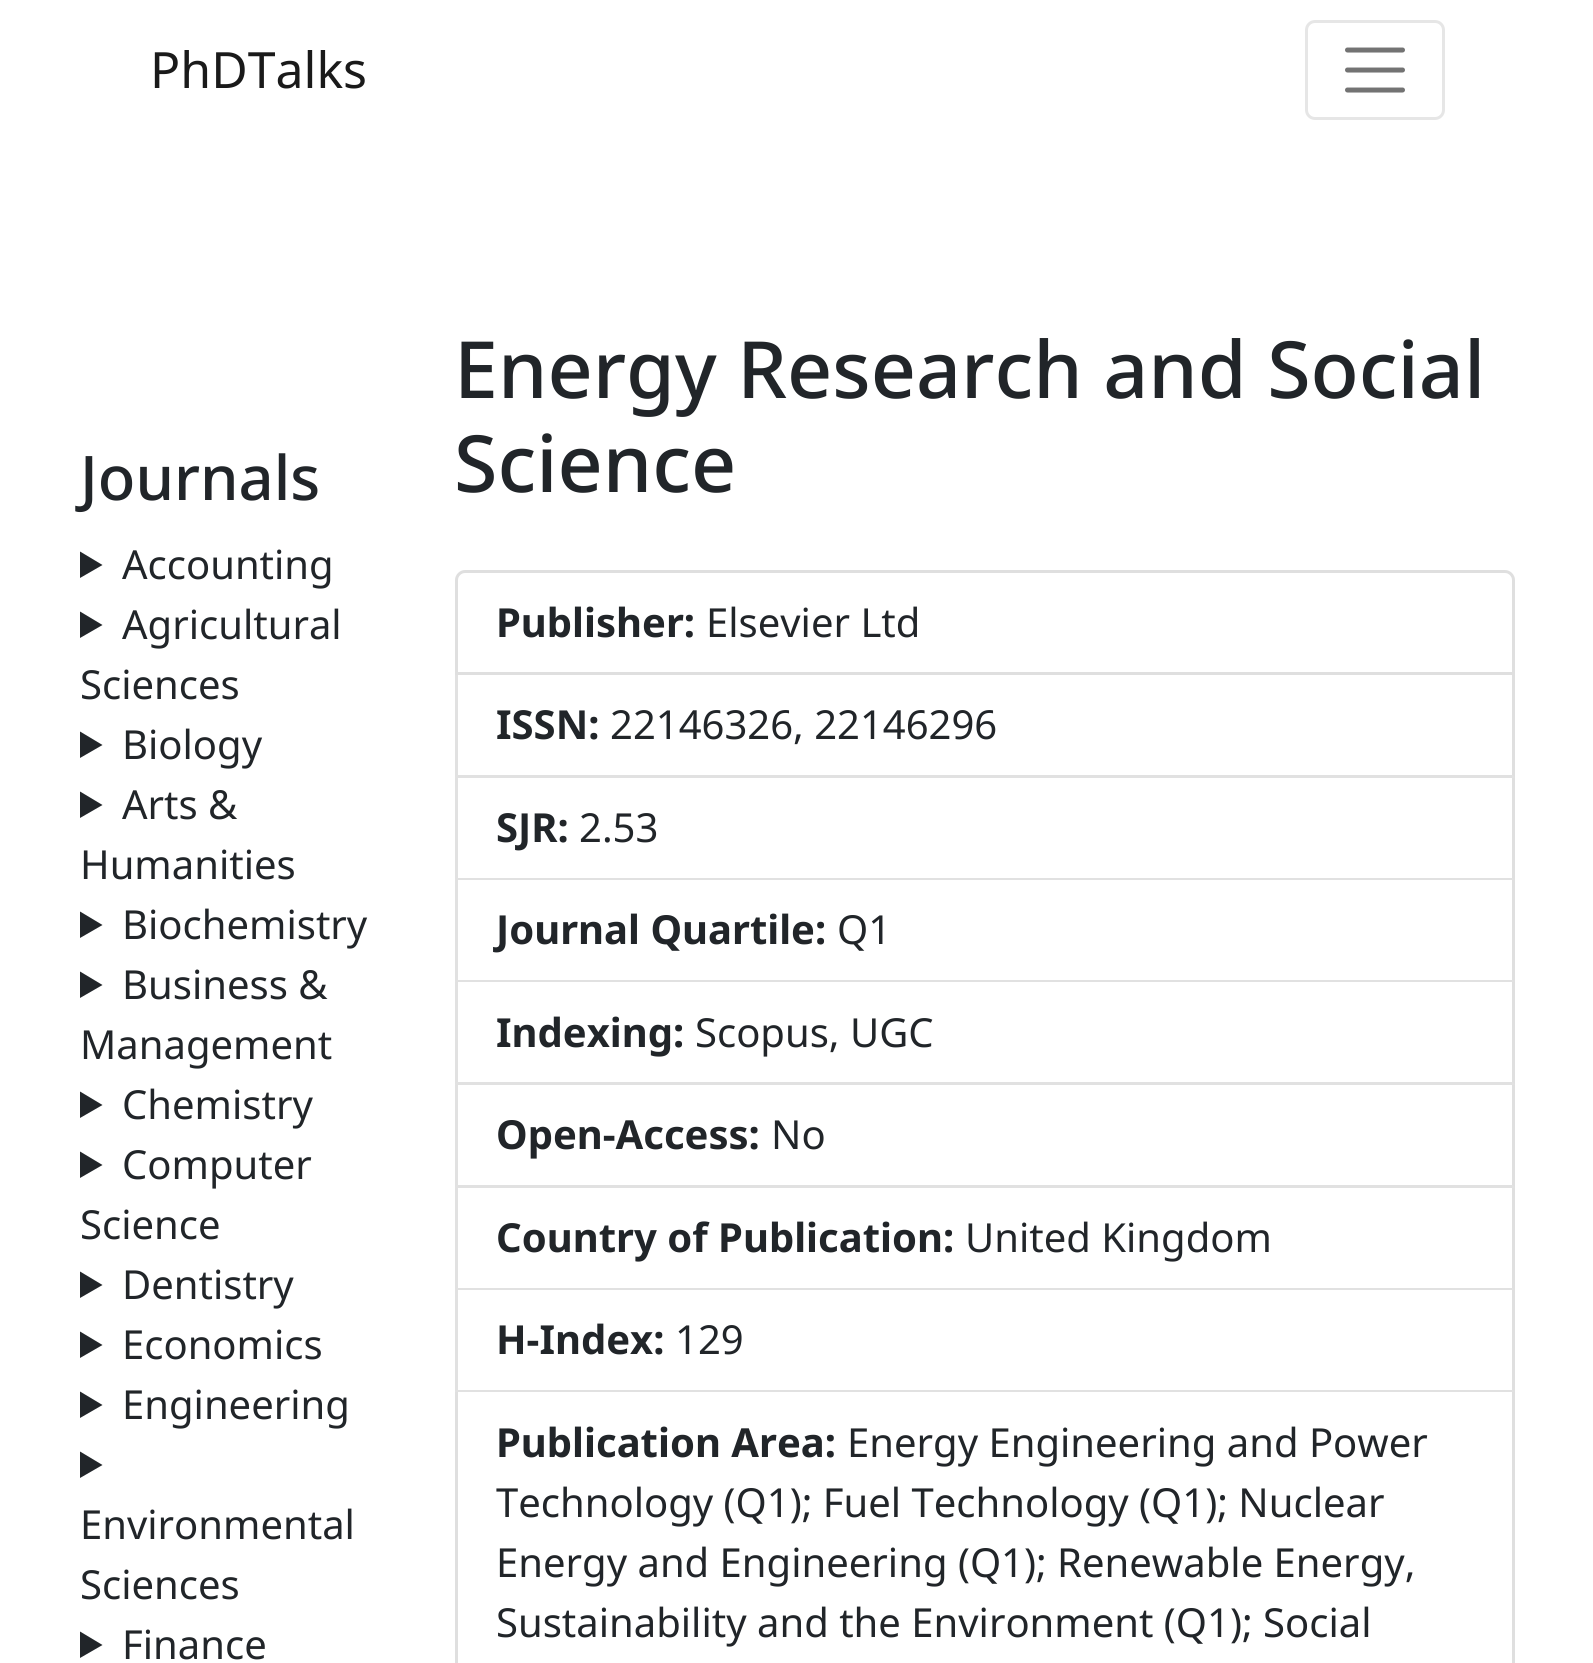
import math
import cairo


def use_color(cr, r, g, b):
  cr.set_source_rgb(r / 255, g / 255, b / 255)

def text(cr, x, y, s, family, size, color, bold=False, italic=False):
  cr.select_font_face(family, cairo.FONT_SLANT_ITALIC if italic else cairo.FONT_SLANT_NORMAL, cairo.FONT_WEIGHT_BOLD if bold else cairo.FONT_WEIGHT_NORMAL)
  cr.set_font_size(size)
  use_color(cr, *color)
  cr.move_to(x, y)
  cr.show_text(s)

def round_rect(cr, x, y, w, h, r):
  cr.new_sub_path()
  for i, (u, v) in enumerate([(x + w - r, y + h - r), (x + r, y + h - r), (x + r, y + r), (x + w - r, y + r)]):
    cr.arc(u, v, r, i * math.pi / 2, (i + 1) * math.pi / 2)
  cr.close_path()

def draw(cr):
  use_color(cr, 255, 255, 255)
  cr.paint()
  round_rect(cr, 1306.5, 21.5, 137, 97, 8.5)
  use_color(cr, 230, 230, 230)
  cr.set_line_width(3)
  cr.stroke()
  cr.new_path()
  cr.move_to(1347.5, 50)
  cr.line_to(1402.5, 50)
  cr.move_to(1347.5, 70)
  cr.line_to(1402.5, 70)
  cr.move_to(1347.5, 90)
  cr.line_to(1402.5, 90)
  use_color(cr, 115, 115, 115)
  cr.set_line_width(5)
  cr.set_line_cap(cairo.LINE_CAP_ROUND)
  cr.stroke()
  use_color(cr, 33, 37, 41)
  cr.new_path()
  cr.move_to(80, 551.5)
  cr.line_to(102.5, 565)
  cr.line_to(80, 578)
  cr.close_path()
  cr.fill()
  cr.new_path()
  cr.move_to(80, 611.5)
  cr.line_to(102.5, 625)
  cr.line_to(80, 638)
  cr.close_path()
  cr.fill()
  cr.new_path()
  cr.move_to(80, 731.5)
  cr.line_to(102.5, 745)
  cr.line_to(80, 758)
  cr.close_path()
  cr.fill()
  cr.new_path()
  cr.move_to(80, 791.5)
  cr.line_to(102.5, 805)
  cr.line_to(80, 818)
  cr.close_path()
  cr.fill()
  cr.new_path()
  cr.move_to(80, 911.5)
  cr.line_to(102.5, 925)
  cr.line_to(80, 938)
  cr.close_path()
  cr.fill()
  cr.new_path()
  cr.move_to(80, 971.5)
  cr.line_to(102.5, 985)
  cr.line_to(80, 998)
  cr.close_path()
  cr.fill()
  cr.new_path()
  cr.move_to(80, 1091.5)
  cr.line_to(102.5, 1105)
  cr.line_to(80, 1118)
  cr.close_path()
  cr.fill()
  cr.new_path()
  cr.move_to(80, 1151.5)
  cr.line_to(102.5, 1165)
  cr.line_to(80, 1178)
  cr.close_path()
  cr.fill()
  cr.new_path()
  cr.move_to(80, 1271.5)
  cr.line_to(102.5, 1285)
  cr.line_to(80, 1298)
  cr.close_path()
  cr.fill()
  cr.new_path()
  cr.move_to(80, 1331.5)
  cr.line_to(102.5, 1345)
  cr.line_to(80, 1358)
  cr.close_path()
  cr.fill()
  cr.new_path()
  cr.move_to(80, 1391.5)
  cr.line_to(102.5, 1405)
  cr.line_to(80, 1418)
  cr.close_path()
  cr.fill()
  cr.new_path()
  cr.move_to(80, 1451.5)
  cr.line_to(102.5, 1465)
  cr.line_to(80, 1478)
  cr.close_path()
  cr.fill()
  cr.new_path()
  cr.move_to(80, 1631.5)
  cr.line_to(102.5, 1645)
  cr.line_to(80, 1658)
  cr.close_path()
  cr.fill()
  cr.new_path()
  cr.move_to(465, 571.5)
  cr.line_to(1505, 571.5)
  cr.curve_to(1509.5, 571.5, 1513.5, 575.5, 1513.5, 580)
  cr.line_to(1513.5, 673.5)
  cr.line_to(456.5, 673.5)
  cr.line_to(456.5, 580)
  cr.curve_to(456.5, 575.5, 460.5, 571.5, 465, 571.5)
  cr.close_path()
  use_color(cr, 223, 223, 223)
  cr.set_line_width(3)
  cr.set_line_cap(cairo.LINE_CAP_BUTT)
  cr.stroke()
  cr.new_path()
  cr.move_to(1515, 675)
  cr.line_to(1515, 778)
  cr.line_to(1512, 775)
  cr.line_to(1512, 675)
  cr.close_path()
  cr.fill()
  cr.set_source_rgba(0, 0, 0, 0.12)
  cr.new_path()
  cr.move_to(1515, 778)
  cr.line_to(455, 778)
  cr.line_to(458, 775)
  cr.line_to(1512, 775)
  cr.close_path()
  cr.fill()
  cr.new_path()
  cr.move_to(455, 778)
  cr.line_to(455, 675)
  cr.line_to(458, 675)
  cr.line_to(458, 775)
  cr.close_path()
  cr.fill()
  use_color(cr, 223, 223, 223)
  cr.new_path()
  cr.move_to(1515, 778)
  cr.line_to(1515, 880)
  cr.line_to(1512, 878)
  cr.line_to(1512, 778)
  cr.close_path()
  cr.fill()
  cr.set_source_rgba(0, 0, 0, 0.12)
  cr.new_path()
  cr.move_to(1515, 880)
  cr.line_to(455, 880)
  cr.line_to(458, 878)
  cr.line_to(1512, 878)
  cr.close_path()
  cr.fill()
  cr.new_path()
  cr.move_to(455, 880)
  cr.line_to(455, 778)
  cr.line_to(458, 778)
  cr.line_to(458, 878)
  cr.close_path()
  cr.fill()
  use_color(cr, 223, 223, 223)
  cr.new_path()
  cr.move_to(1515, 880)
  cr.line_to(1515, 982)
  cr.line_to(1512, 980)
  cr.line_to(1512, 880)
  cr.close_path()
  cr.fill()
  cr.set_source_rgba(0, 0, 0, 0.12)
  cr.new_path()
  cr.move_to(1515, 982)
  cr.line_to(455, 982)
  cr.line_to(458, 980)
  cr.line_to(1512, 980)
  cr.close_path()
  cr.fill()
  cr.new_path()
  cr.move_to(455, 982)
  cr.line_to(455, 880)
  cr.line_to(458, 880)
  cr.line_to(458, 980)
  cr.close_path()
  cr.fill()
  use_color(cr, 223, 223, 223)
  cr.new_path()
  cr.move_to(1515, 982)
  cr.line_to(1515, 1085)
  cr.line_to(1512, 1082)
  cr.line_to(1512, 982)
  cr.close_path()
  cr.fill()
  cr.set_source_rgba(0, 0, 0, 0.12)
  cr.new_path()
  cr.move_to(1515, 1085)
  cr.line_to(455, 1085)
  cr.line_to(458, 1082)
  cr.line_to(1512, 1082)
  cr.close_path()
  cr.fill()
  cr.new_path()
  cr.move_to(455, 1085)
  cr.line_to(455, 982)
  cr.line_to(458, 982)
  cr.line_to(458, 1082)
  cr.close_path()
  cr.fill()
  use_color(cr, 223, 223, 223)
  cr.new_path()
  cr.move_to(1515, 1085)
  cr.line_to(1515, 1188)
  cr.line_to(1512, 1185)
  cr.line_to(1512, 1085)
  cr.close_path()
  cr.fill()
  cr.set_source_rgba(0, 0, 0, 0.12)
  cr.new_path()
  cr.move_to(1515, 1188)
  cr.line_to(455, 1188)
  cr.line_to(458, 1185)
  cr.line_to(1512, 1185)
  cr.close_path()
  cr.fill()
  cr.new_path()
  cr.move_to(455, 1188)
  cr.line_to(455, 1085)
  cr.line_to(458, 1085)
  cr.line_to(458, 1185)
  cr.close_path()
  cr.fill()
  use_color(cr, 223, 223, 223)
  cr.new_path()
  cr.move_to(1515, 1188)
  cr.line_to(1515, 1290)
  cr.line_to(1512, 1288)
  cr.line_to(1512, 1188)
  cr.close_path()
  cr.fill()
  cr.set_source_rgba(0, 0, 0, 0.12)
  cr.new_path()
  cr.move_to(1515, 1290)
  cr.line_to(455, 1290)
  cr.line_to(458, 1288)
  cr.line_to(1512, 1288)
  cr.close_path()
  cr.fill()
  cr.new_path()
  cr.move_to(455, 1290)
  cr.line_to(455, 1188)
  cr.line_to(458, 1188)
  cr.line_to(458, 1288)
  cr.close_path()
  cr.fill()
  use_color(cr, 223, 223, 223)
  cr.new_path()
  cr.move_to(1515, 1290)
  cr.line_to(1515, 1392)
  cr.line_to(1512, 1390)
  cr.line_to(1512, 1290)
  cr.close_path()
  cr.fill()
  cr.set_source_rgba(0, 0, 0, 0.12)
  cr.new_path()
  cr.move_to(1515, 1392)
  cr.line_to(455, 1392)
  cr.line_to(458, 1390)
  cr.line_to(1512, 1390)
  cr.close_path()
  cr.fill()
  cr.new_path()
  cr.move_to(455, 1392)
  cr.line_to(455, 1290)
  cr.line_to(458, 1290)
  cr.line_to(458, 1390)
  cr.close_path()
  cr.fill()
  use_color(cr, 223, 223, 223)
  cr.set_fill_rule(cairo.FILL_RULE_EVEN_ODD)
  cr.new_path()
  cr.move_to(455, 1392)
  cr.line_to(1515, 1392)
  cr.line_to(1515, 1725)
  cr.curve_to(1515, 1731, 1511, 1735, 1505, 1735)
  cr.line_to(465, 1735)
  cr.curve_to(459, 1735, 455, 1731, 455, 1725)
  cr.close_path()
  cr.move_to(458, 1392)
  cr.line_to(1512, 1392)
  cr.line_to(1512, 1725)
  cr.curve_to(1512, 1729, 1509, 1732, 1505, 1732)
  cr.line_to(465, 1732)
  cr.curve_to(461, 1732, 458, 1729, 458, 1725)
  cr.close_path()
  cr.fill()
  text(cr, 150, 88, "PhDTalks", "Noto Sans", 50, (26, 26, 26))
  text(cr, 80, 500, "Journals", "Noto Sans Medium", 61.5, (33, 37, 41))
  text(cr, 122, 579, "Accounting", "Noto Sans", 40, (33, 37, 41))
  text(cr, 122, 639, "Agricultural", "Noto Sans", 40, (33, 37, 41))
  text(cr, 80, 699, "Sciences", "Noto Sans", 40, (33, 37, 41))
  text(cr, 122, 759, "Biology", "Noto Sans", 40, (33, 37, 41))
  text(cr, 122, 819, "Arts &", "Noto Sans", 40, (33, 37, 41))
  text(cr, 80, 879, "Humanities", "Noto Sans", 40, (33, 37, 41))
  text(cr, 122, 939, "Biochemistry", "Noto Sans", 40, (33, 37, 41))
  text(cr, 122, 999, "Business &", "Noto Sans", 40, (33, 37, 41))
  text(cr, 80, 1059, "Management", "Noto Sans", 40, (33, 37, 41))
  text(cr, 122, 1119, "Chemistry", "Noto Sans", 40, (33, 37, 41))
  text(cr, 122, 1179, "Computer", "Noto Sans", 40, (33, 37, 41))
  text(cr, 80, 1239, "Science", "Noto Sans", 40, (33, 37, 41))
  text(cr, 122, 1299, "Dentistry", "Noto Sans", 40, (33, 37, 41))
  text(cr, 122, 1359, "Economics", "Noto Sans", 40, (33, 37, 41))
  text(cr, 122, 1419, "Engineering", "Noto Sans", 40, (33, 37, 41))
  text(cr, 80, 1539, "Environmental", "Noto Sans", 40, (33, 37, 41))
  text(cr, 80, 1599, "Sciences", "Noto Sans", 40, (33, 37, 41))
  text(cr, 122, 1659, "Finance", "Noto Sans", 40, (33, 37, 41))
  text(cr, 454, 398, "Energy Research and Social", "Noto Sans Medium", 78.9, (33, 37, 41))
  text(cr, 454, 492, "Science", "Noto Sans Medium", 78.9, (33, 37, 41))
  text(cr, 496, 637, "Publisher:", "Noto Sans", 40, (33, 37, 41), bold=True)
  text(cr, 706, 637, "Elsevier Ltd", "Noto Sans", 40, (33, 37, 41))
  text(cr, 496, 739, "ISSN:", "Noto Sans", 40, (33, 37, 41), bold=True)
  text(cr, 610, 739, "22146326, 22146296", "Noto Sans", 40, (33, 37, 41))
  text(cr, 496, 842, "SJR:", "Noto Sans", 40, (33, 37, 41), bold=True)
  text(cr, 579, 842, "2.53", "Noto Sans", 40, (33, 37, 41))
  text(cr, 496, 944, "Journal Quartile:", "Noto Sans", 40, (33, 37, 41), bold=True)
  text(cr, 837, 944, "Q1", "Noto Sans", 40, (33, 37, 41))
  text(cr, 496, 1047, "Indexing:", "Noto Sans", 40, (33, 37, 41), bold=True)
  text(cr, 695, 1047, "Scopus, UGC", "Noto Sans", 40, (33, 37, 41))
  text(cr, 496, 1149, "Open-Access:", "Noto Sans", 40, (33, 37, 41), bold=True)
  text(cr, 771, 1149, "No", "Noto Sans", 40, (33, 37, 41))
  text(cr, 496, 1252, "Country of Publication:", "Noto Sans", 40, (33, 37, 41), bold=True)
  text(cr, 965, 1252, "United Kingdom", "Noto Sans", 40, (33, 37, 41))
  text(cr, 496, 1354, "H-Index:", "Noto Sans", 40, (33, 37, 41), bold=True)
  text(cr, 675, 1354, "129", "Noto Sans", 40, (33, 37, 41))
  text(cr, 496, 1457, "Publication Area:", "Noto Sans", 40, (33, 37, 41), bold=True)
  text(cr, 847, 1457, "Energy Engineering and Power", "Noto Sans", 40, (33, 37, 41))
  text(cr, 496, 1517, "Technology (Q1); Fuel Technology (Q1); Nuclear", "Noto Sans", 40, (33, 37, 41))
  text(cr, 496, 1577, "Energy and Engineering (Q1); Renewable Energy,", "Noto Sans", 40, (33, 37, 41))
  text(cr, 496, 1637, "Sustainability and the Environment (Q1); Social", "Noto Sans", 40, (33, 37, 41))


surface = cairo.ImageSurface(cairo.FORMAT_RGB24, 1593, 1663)
cr = cairo.Context(surface)
options = cairo.FontOptions()
options.set_hint_metrics(cairo.HINT_METRICS_OFF)
options.set_hint_style(cairo.HINT_STYLE_NONE)
cr.set_font_options(options)
cr.set_miter_limit(4)
draw(cr)
surface.write_to_png("out.png")
